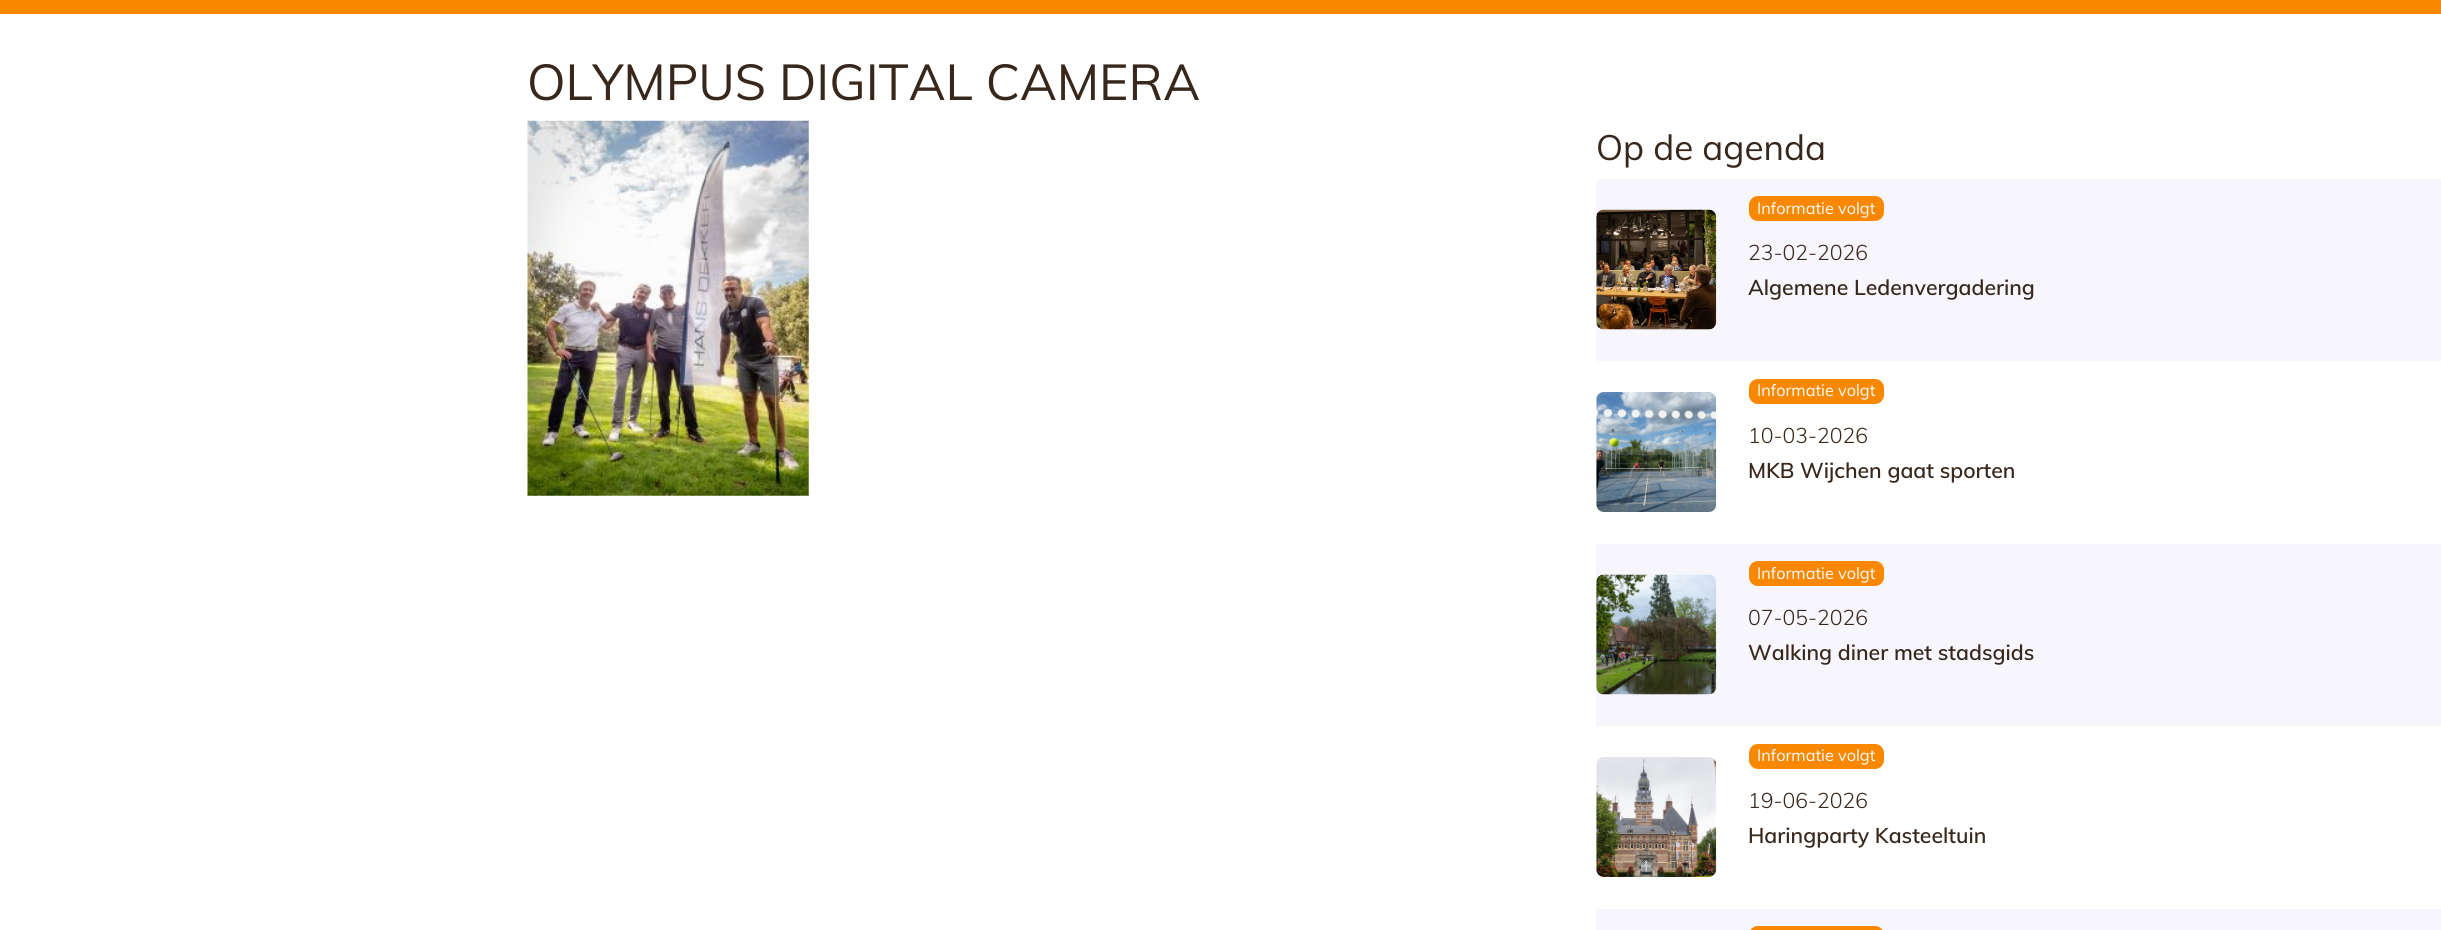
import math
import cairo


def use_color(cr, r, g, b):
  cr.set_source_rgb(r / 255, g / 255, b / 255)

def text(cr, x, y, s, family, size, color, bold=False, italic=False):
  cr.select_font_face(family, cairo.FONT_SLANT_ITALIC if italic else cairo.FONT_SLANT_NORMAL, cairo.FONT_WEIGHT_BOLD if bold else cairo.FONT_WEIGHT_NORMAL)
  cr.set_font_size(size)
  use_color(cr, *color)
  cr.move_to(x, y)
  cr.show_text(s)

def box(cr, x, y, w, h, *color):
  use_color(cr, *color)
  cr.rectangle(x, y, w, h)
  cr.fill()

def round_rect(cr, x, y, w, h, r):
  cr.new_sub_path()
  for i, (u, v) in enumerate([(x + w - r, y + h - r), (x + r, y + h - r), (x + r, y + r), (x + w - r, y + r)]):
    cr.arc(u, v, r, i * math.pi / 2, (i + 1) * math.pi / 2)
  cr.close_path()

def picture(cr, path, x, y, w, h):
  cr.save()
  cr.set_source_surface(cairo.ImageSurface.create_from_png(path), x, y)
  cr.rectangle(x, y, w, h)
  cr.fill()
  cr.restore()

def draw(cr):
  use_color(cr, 255, 255, 255)
  cr.paint()
  box(cr, 0, 0, 2441, 14, 250, 135, 0)
  picture(cr, "img_01.png", 527, 120, 282, 376)
  box(cr, 1596, 179, 845, 182, 246, 246, 252)
  picture(cr, "img_02.png", 1596, 209, 121, 121)
  use_color(cr, 250, 135, 0)
  round_rect(cr, 1749, 196, 135, 25, 9)
  cr.fill()
  picture(cr, "img_03.png", 1596, 392, 121, 120)
  round_rect(cr, 1749, 379, 135, 25, 9)
  cr.fill()
  box(cr, 1596, 544, 845, 182, 246, 246, 252)
  picture(cr, "img_04.png", 1596, 574, 121, 121)
  use_color(cr, 250, 135, 0)
  round_rect(cr, 1749, 561, 135, 25, 9)
  cr.fill()
  picture(cr, "img_05.png", 1596, 757, 121, 120)
  round_rect(cr, 1749, 744, 135, 25, 9)
  cr.fill()
  box(cr, 1596, 909, 845, 21, 246, 246, 252)
  use_color(cr, 250, 135, 0)
  round_rect(cr, 1749, 926, 135, 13, 9)
  cr.fill()
  text(cr, 527, 100, "OLYMPUS DIGITAL CAMERA", "Muli", 50, (56, 39, 27))
  text(cr, 1596, 160, "Op de agenda", "Muli", 35, (56, 39, 27))
  text(cr, 1757, 214, "Informatie volgt", "Muli", 16.25, (255, 255, 255))
  text(cr, 1748, 260, "23-02-2026", "Muli Light", 21.25, (56, 39, 27))
  text(cr, 1748, 295, "Algemene Ledenvergadering", "Muli SemiBold", 21.25, (56, 39, 27))
  text(cr, 1757, 396, "Informatie volgt", "Muli", 16.25, (255, 255, 255))
  text(cr, 1748, 443, "10-03-2026", "Muli Light", 21.25, (56, 39, 27))
  text(cr, 1748, 478, "MKB Wijchen gaat sporten", "Muli SemiBold", 21.25, (56, 39, 27))
  text(cr, 1757, 579, "Informatie volgt", "Muli", 16.25, (255, 255, 255))
  text(cr, 1748, 625, "07-05-2026", "Muli Light", 21.25, (56, 39, 27))
  text(cr, 1748, 660, "Walking diner met stadsgids", "Muli SemiBold", 21.25, (56, 39, 27))
  text(cr, 1757, 761, "Informatie volgt", "Muli", 16.25, (255, 255, 255))
  text(cr, 1748, 808, "19-06-2026", "Muli Light", 21.25, (56, 39, 27))
  text(cr, 1748, 843, "Haringparty Kasteeltuin", "Muli SemiBold", 21.25, (56, 39, 27))


surface = cairo.ImageSurface(cairo.FORMAT_RGB24, 2441, 930)
cr = cairo.Context(surface)
options = cairo.FontOptions()
options.set_hint_metrics(cairo.HINT_METRICS_OFF)
options.set_hint_style(cairo.HINT_STYLE_NONE)
cr.set_font_options(options)
cr.set_miter_limit(4)
draw(cr)
surface.write_to_png("out.png")
